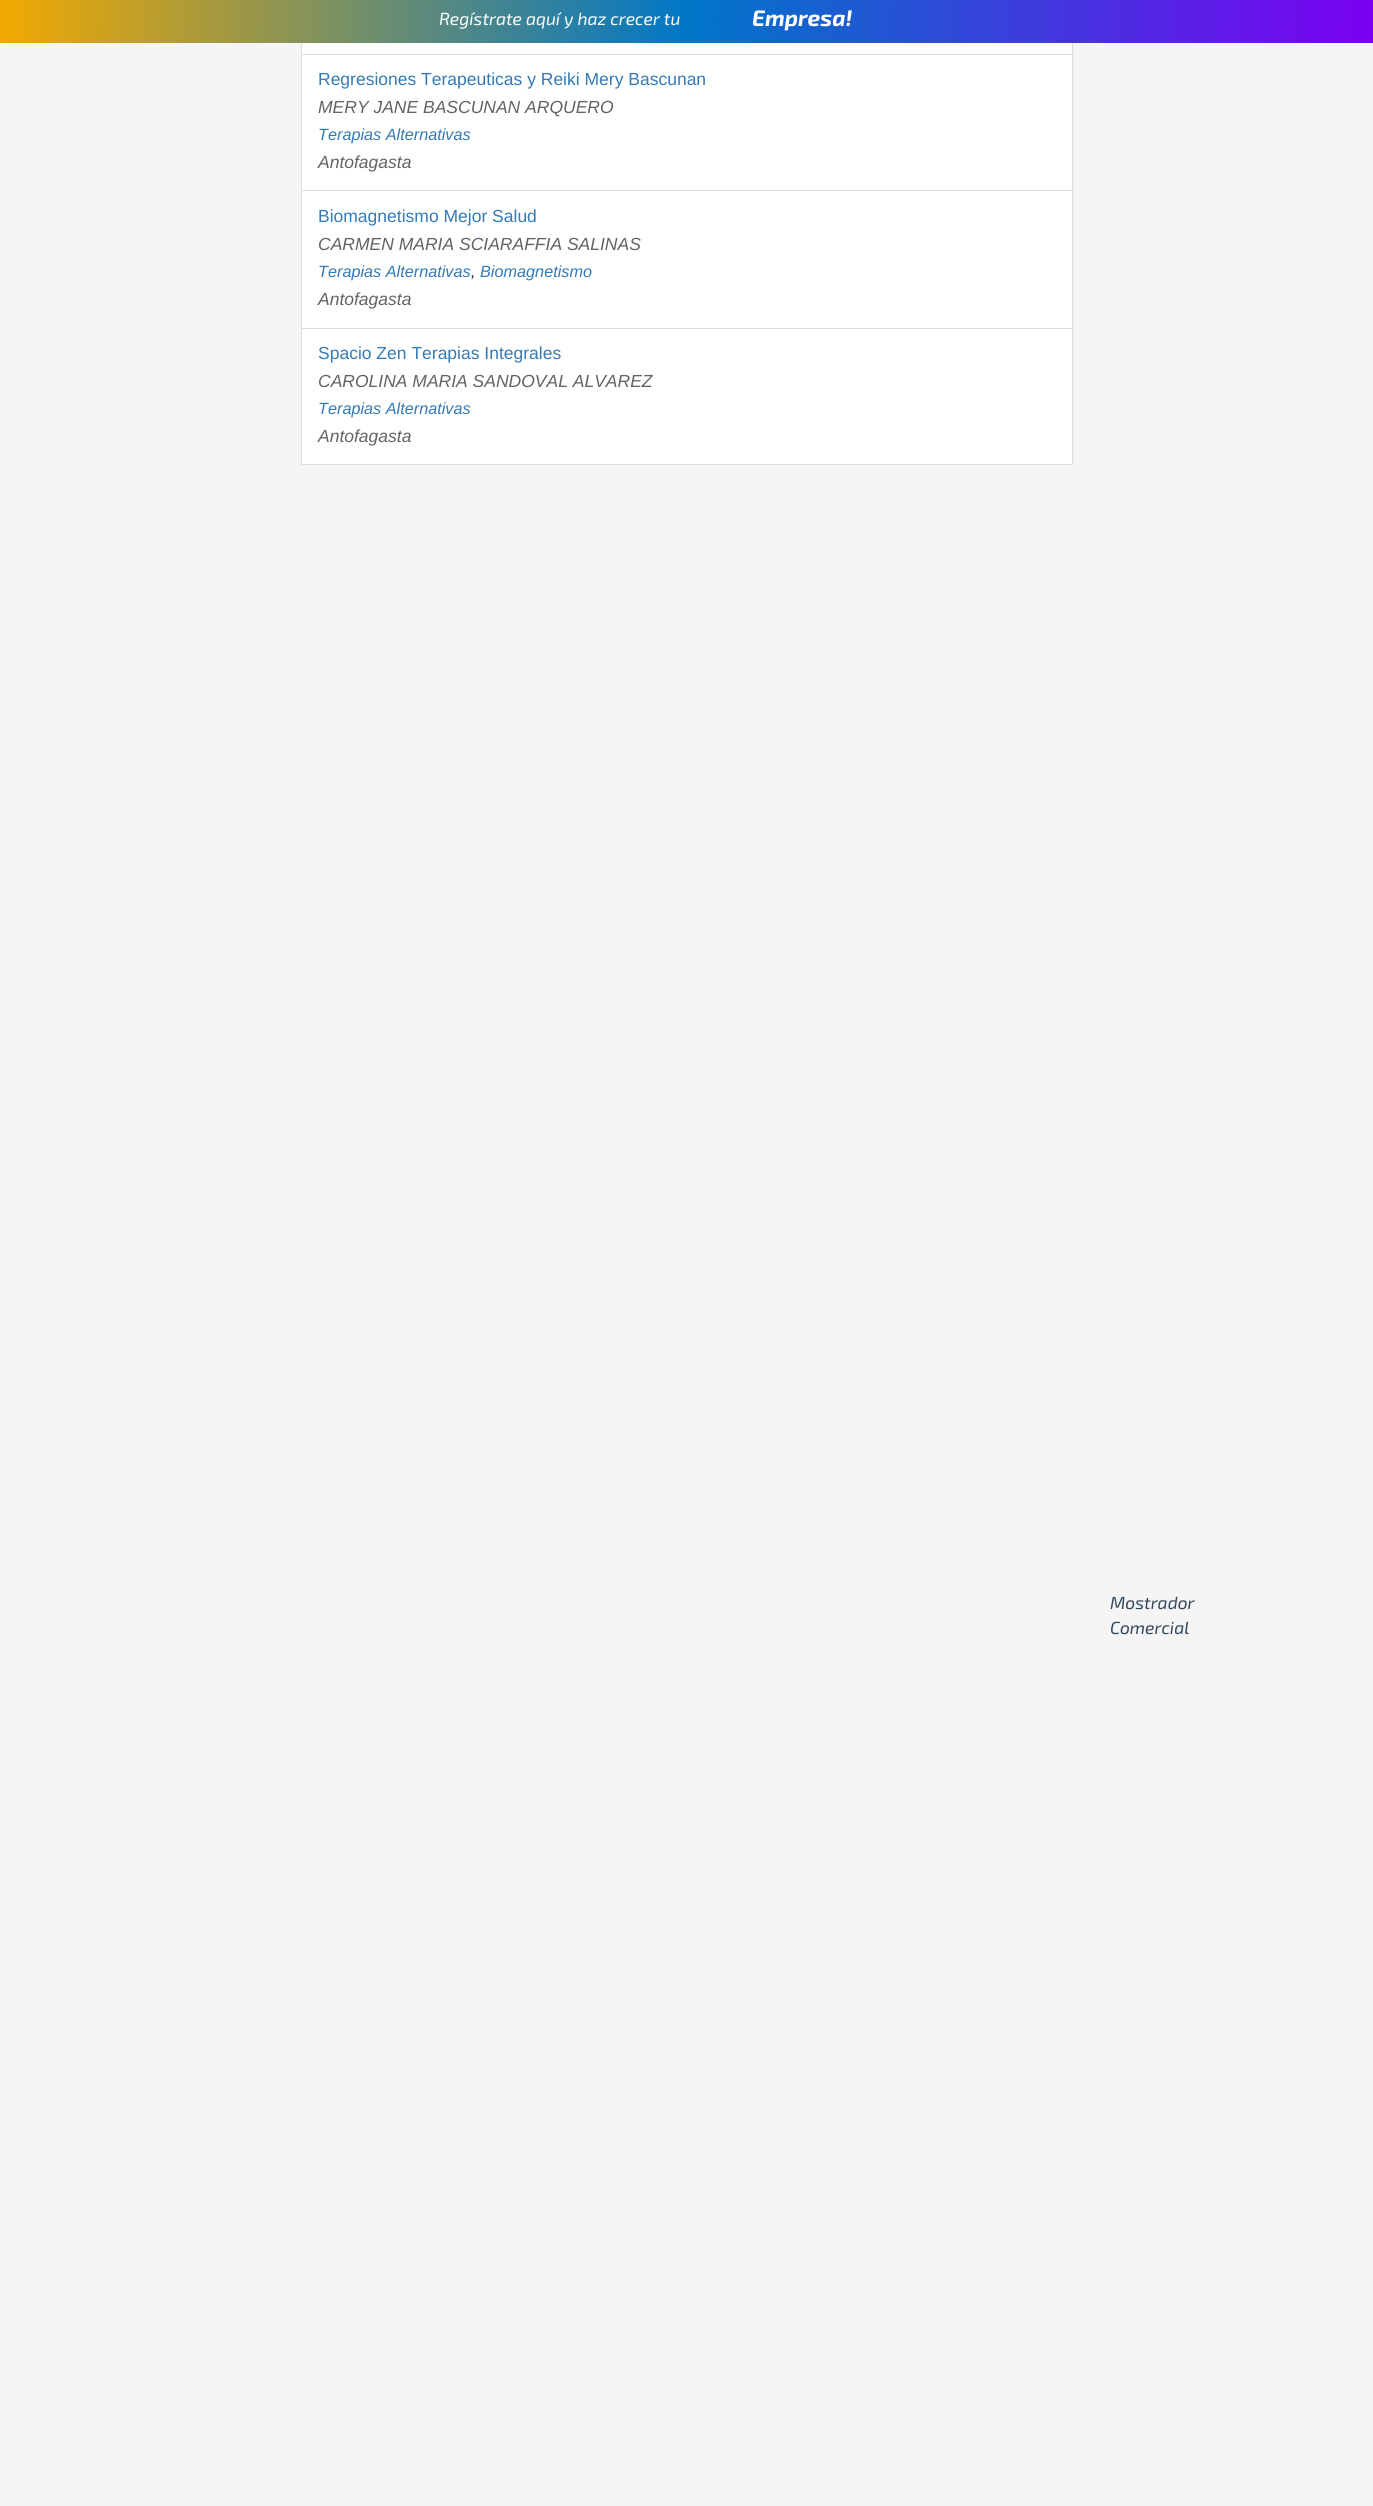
import math
import cairo


def use_color(cr, r, g, b):
  cr.set_source_rgb(r / 255, g / 255, b / 255)

def text(cr, x, y, s, family, size, color, bold=False, italic=False):
  cr.select_font_face(family, cairo.FONT_SLANT_ITALIC if italic else cairo.FONT_SLANT_NORMAL, cairo.FONT_WEIGHT_BOLD if bold else cairo.FONT_WEIGHT_NORMAL)
  cr.set_font_size(size)
  use_color(cr, *color)
  cr.move_to(x, y)
  cr.show_text(s)

def box(cr, x, y, w, h, *color):
  use_color(cr, *color)
  cr.rectangle(x, y, w, h)
  cr.fill()

def draw(cr):
  use_color(cr, 245, 245, 245)
  cr.paint()
  box(cr, 302, 43, 770, 11, 255, 255, 255)
  cr.rectangle(301.5, -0.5, 771, 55)
  use_color(cr, 221, 221, 221)
  cr.set_line_width(1)
  cr.stroke()
  gradient = cairo.LinearGradient(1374, 33, -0.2, 9)
  gradient.add_color_stop_rgba(0, 0.482, 0, 0.949, 1)
  gradient.add_color_stop_rgba(0.5, 0, 0.467, 0.784, 1)
  gradient.add_color_stop_rgba(1, 0.949, 0.663, 0, 1)
  cr.set_source(gradient)
  cr.rectangle(0, 0, 1373, 43)
  cr.fill()
  use_color(cr, 255, 255, 255)
  cr.rectangle(301.5, 54.5, 771, 136)
  cr.fill_preserve()
  use_color(cr, 221, 221, 221)
  cr.stroke()
  use_color(cr, 255, 255, 255)
  cr.rectangle(301.5, 190.5, 771, 138)
  cr.fill_preserve()
  use_color(cr, 221, 221, 221)
  cr.stroke()
  use_color(cr, 255, 255, 255)
  cr.rectangle(301.5, 328.5, 771, 136)
  cr.fill_preserve()
  use_color(cr, 221, 221, 221)
  cr.stroke()
  text(cr, 439, 25, "Regístrate aquí y haz crecer tu", "Exo 2", 17.5, (255, 255, 255), italic=True)
  text(cr, 752, 26, "Empresa!", "Exo 2", 22.5, (255, 255, 255), bold=True, italic=True)
  text(cr, 318, 85, "Regresiones Terapeuticas y Reiki Mery Bascunan", "Liberation Sans", 17.5, (51, 122, 183))
  text(cr, 318, 113, "MERY JANE BASCUNAN ARQUERO", "Liberation Sans", 17.5, (99, 99, 96), italic=True)
  text(cr, 318, 140, "Terapias Alternativas", "Liberation Sans", 16.25, (51, 122, 183), italic=True)
  text(cr, 318, 168, "Antofagasta", "Liberation Sans", 17.5, (99, 99, 96), italic=True)
  text(cr, 318, 222, "Biomagnetismo Mejor Salud", "Liberation Sans", 17.5, (51, 122, 183))
  text(cr, 318, 250, "CARMEN MARIA SCIARAFFIA SALINAS", "Liberation Sans", 17.5, (99, 99, 96), italic=True)
  text(cr, 318, 277, "Terapias Alternativas", "Liberation Sans", 16.25, (51, 122, 183), italic=True)
  text(cr, 471, 277, ",", "Liberation Sans", 16.25, (51, 51, 51), italic=True)
  text(cr, 480, 277, "Biomagnetismo", "Liberation Sans", 16.25, (51, 122, 183), italic=True)
  text(cr, 318, 305, "Antofagasta", "Liberation Sans", 17.5, (99, 99, 96), italic=True)
  text(cr, 318, 359, "Spacio Zen Terapias Integrales", "Liberation Sans", 17.5, (51, 122, 183))
  text(cr, 318, 387, "CAROLINA MARIA SANDOVAL ALVAREZ", "Liberation Sans", 17.5, (99, 99, 96), italic=True)
  text(cr, 318, 414, "Terapias Alternativas", "Liberation Sans", 16.25, (51, 122, 183), italic=True)
  text(cr, 318, 442, "Antofagasta", "Liberation Sans", 17.5, (99, 99, 96), italic=True)
  text(cr, 1110, 1609, "Mostrador", "Exo 2", 17.5, (51, 71, 94), italic=True)
  text(cr, 1110, 1634, "Comercial", "Exo 2", 17.5, (51, 71, 94), italic=True)


surface = cairo.ImageSurface(cairo.FORMAT_RGB24, 1373, 2506)
cr = cairo.Context(surface)
options = cairo.FontOptions()
options.set_hint_metrics(cairo.HINT_METRICS_OFF)
options.set_hint_style(cairo.HINT_STYLE_NONE)
cr.set_font_options(options)
cr.set_miter_limit(4)
draw(cr)
surface.write_to_png("out.png")
